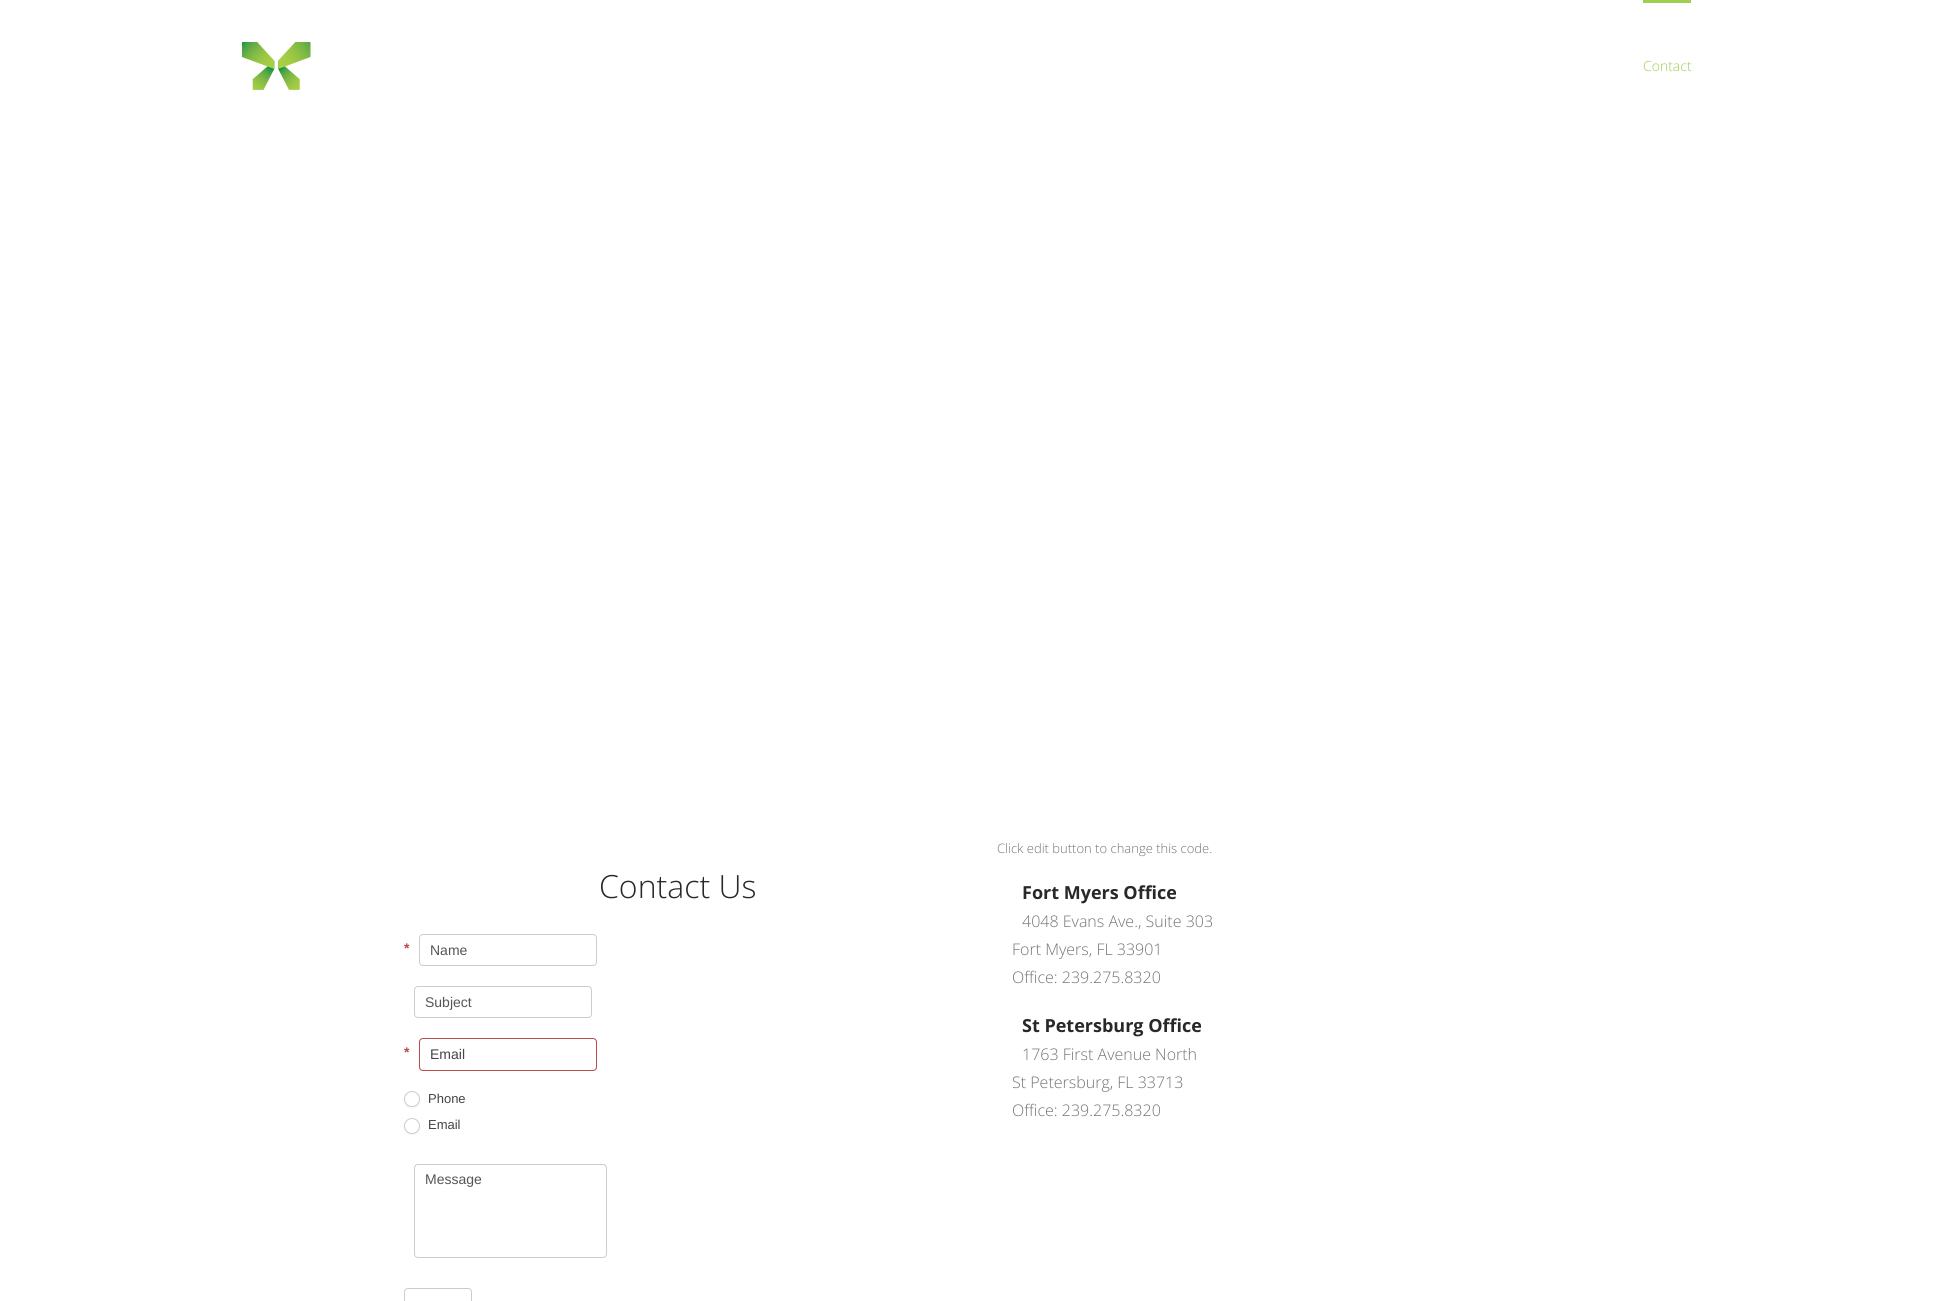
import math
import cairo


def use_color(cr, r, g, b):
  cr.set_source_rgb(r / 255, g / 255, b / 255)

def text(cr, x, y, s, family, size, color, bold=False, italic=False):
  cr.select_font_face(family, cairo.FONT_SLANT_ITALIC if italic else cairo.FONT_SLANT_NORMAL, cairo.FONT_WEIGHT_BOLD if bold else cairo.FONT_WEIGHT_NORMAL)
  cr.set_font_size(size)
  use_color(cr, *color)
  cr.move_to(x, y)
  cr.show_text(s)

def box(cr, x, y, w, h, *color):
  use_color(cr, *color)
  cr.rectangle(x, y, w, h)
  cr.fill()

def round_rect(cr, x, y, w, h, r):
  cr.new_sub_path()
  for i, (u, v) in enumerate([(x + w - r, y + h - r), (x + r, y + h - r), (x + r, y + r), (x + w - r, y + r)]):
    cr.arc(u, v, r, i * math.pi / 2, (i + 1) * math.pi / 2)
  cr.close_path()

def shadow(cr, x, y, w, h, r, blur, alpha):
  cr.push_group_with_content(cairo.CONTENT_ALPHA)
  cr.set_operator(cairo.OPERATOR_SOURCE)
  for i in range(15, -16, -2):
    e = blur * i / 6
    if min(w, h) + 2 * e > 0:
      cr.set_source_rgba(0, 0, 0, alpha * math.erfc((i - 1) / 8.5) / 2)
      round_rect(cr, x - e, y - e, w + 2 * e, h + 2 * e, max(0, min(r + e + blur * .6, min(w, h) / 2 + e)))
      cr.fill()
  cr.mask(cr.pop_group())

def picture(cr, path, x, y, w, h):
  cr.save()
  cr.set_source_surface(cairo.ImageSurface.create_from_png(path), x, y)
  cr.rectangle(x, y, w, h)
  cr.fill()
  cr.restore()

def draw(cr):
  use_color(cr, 255, 255, 255)
  cr.paint()
  picture(cr, "img_01.png", 242, 42, 69, 48)
  box(cr, 1643, 0, 48, 3, 160, 206, 78)
  round_rect(cr, 419.5, 934.5, 177, 31, 3.5)
  use_color(cr, 204, 204, 204)
  cr.set_line_width(1)
  cr.stroke()
  round_rect(cr, 414.5, 986.5, 177, 31, 3.5)
  cr.stroke()
  round_rect(cr, 419.5, 1038.5, 177, 32, 3.5)
  use_color(cr, 185, 74, 72)
  cr.stroke()
  use_color(cr, 18, 18, 23)
  shadow(cr, 404, 1092, 16, 16, 8, 1, 0.05)
  use_color(cr, 255, 255, 255)
  cr.arc(412, 1099, 7.5, 0, 2 * math.pi)
  cr.fill_preserve()
  use_color(cr, 204, 204, 204)
  cr.stroke()
  use_color(cr, 18, 18, 23)
  shadow(cr, 404, 1119, 16, 16, 8, 1, 0.05)
  use_color(cr, 255, 255, 255)
  cr.arc(412, 1126, 7.5, 0, 2 * math.pi)
  cr.fill_preserve()
  use_color(cr, 204, 204, 204)
  cr.stroke()
  round_rect(cr, 414.5, 1164.5, 192, 93, 3.5)
  cr.stroke()
  round_rect(cr, 404.5, 1288.5, 67, 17, 3.5)
  cr.stroke()
  text(cr, 1643, 71, "Contact", "Open Sans Light", 14, (160, 206, 78))
  text(cr, 599, 898, "Contact Us", "Open Sans Light", 32, (39, 40, 39))
  text(cr, 404, 953, "*", "Liberation Sans", 14, (185, 74, 72), bold=True)
  text(cr, 430, 955, "Name", "Liberation Sans", 14, (85, 85, 85))
  text(cr, 425, 1007, "Subject", "Liberation Sans", 14, (85, 85, 85))
  text(cr, 404, 1057, "*", "Liberation Sans", 14, (185, 74, 72), bold=True)
  text(cr, 430, 1059, "Email", "Liberation Sans", 14, (68, 68, 68))
  text(cr, 428, 1103, "Phone", "Liberation Sans", 13, (68, 68, 68))
  text(cr, 428, 1129, "Email", "Liberation Sans", 13, (68, 68, 68))
  text(cr, 425, 1184, "Message", "Liberation Sans", 14, (85, 85, 85))
  text(cr, 997, 853, "Click edit button to change this code.", "Open Sans Light", 13, (116, 116, 116))
  text(cr, 1022, 899, "Fort Myers Office", "Open Sans", 18, (39, 40, 39), bold=True)
  text(cr, 1022, 927, "4048 Evans Ave., Suite 303", "Open Sans Light", 16, (116, 116, 116))
  text(cr, 1012, 955, "Fort Myers, FL 33901", "Open Sans Light", 16, (116, 116, 116))
  text(cr, 1012, 983, "Office: 239.275.8320", "Open Sans Light", 16, (116, 116, 116))
  text(cr, 1022, 1032, "St Petersburg Office", "Open Sans", 18, (39, 40, 39), bold=True)
  text(cr, 1022, 1060, "1763 First Avenue North", "Open Sans Light", 16, (116, 116, 116))
  text(cr, 1012, 1088, "St Petersburg, FL 33713", "Open Sans Light", 16, (116, 116, 116))
  text(cr, 1012, 1116, "Office: 239.275.8320", "Open Sans Light", 16, (116, 116, 116))


surface = cairo.ImageSurface(cairo.FORMAT_RGB24, 1948, 1301)
cr = cairo.Context(surface)
options = cairo.FontOptions()
options.set_hint_metrics(cairo.HINT_METRICS_OFF)
options.set_hint_style(cairo.HINT_STYLE_NONE)
cr.set_font_options(options)
cr.set_miter_limit(4)
draw(cr)
surface.write_to_png("out.png")
